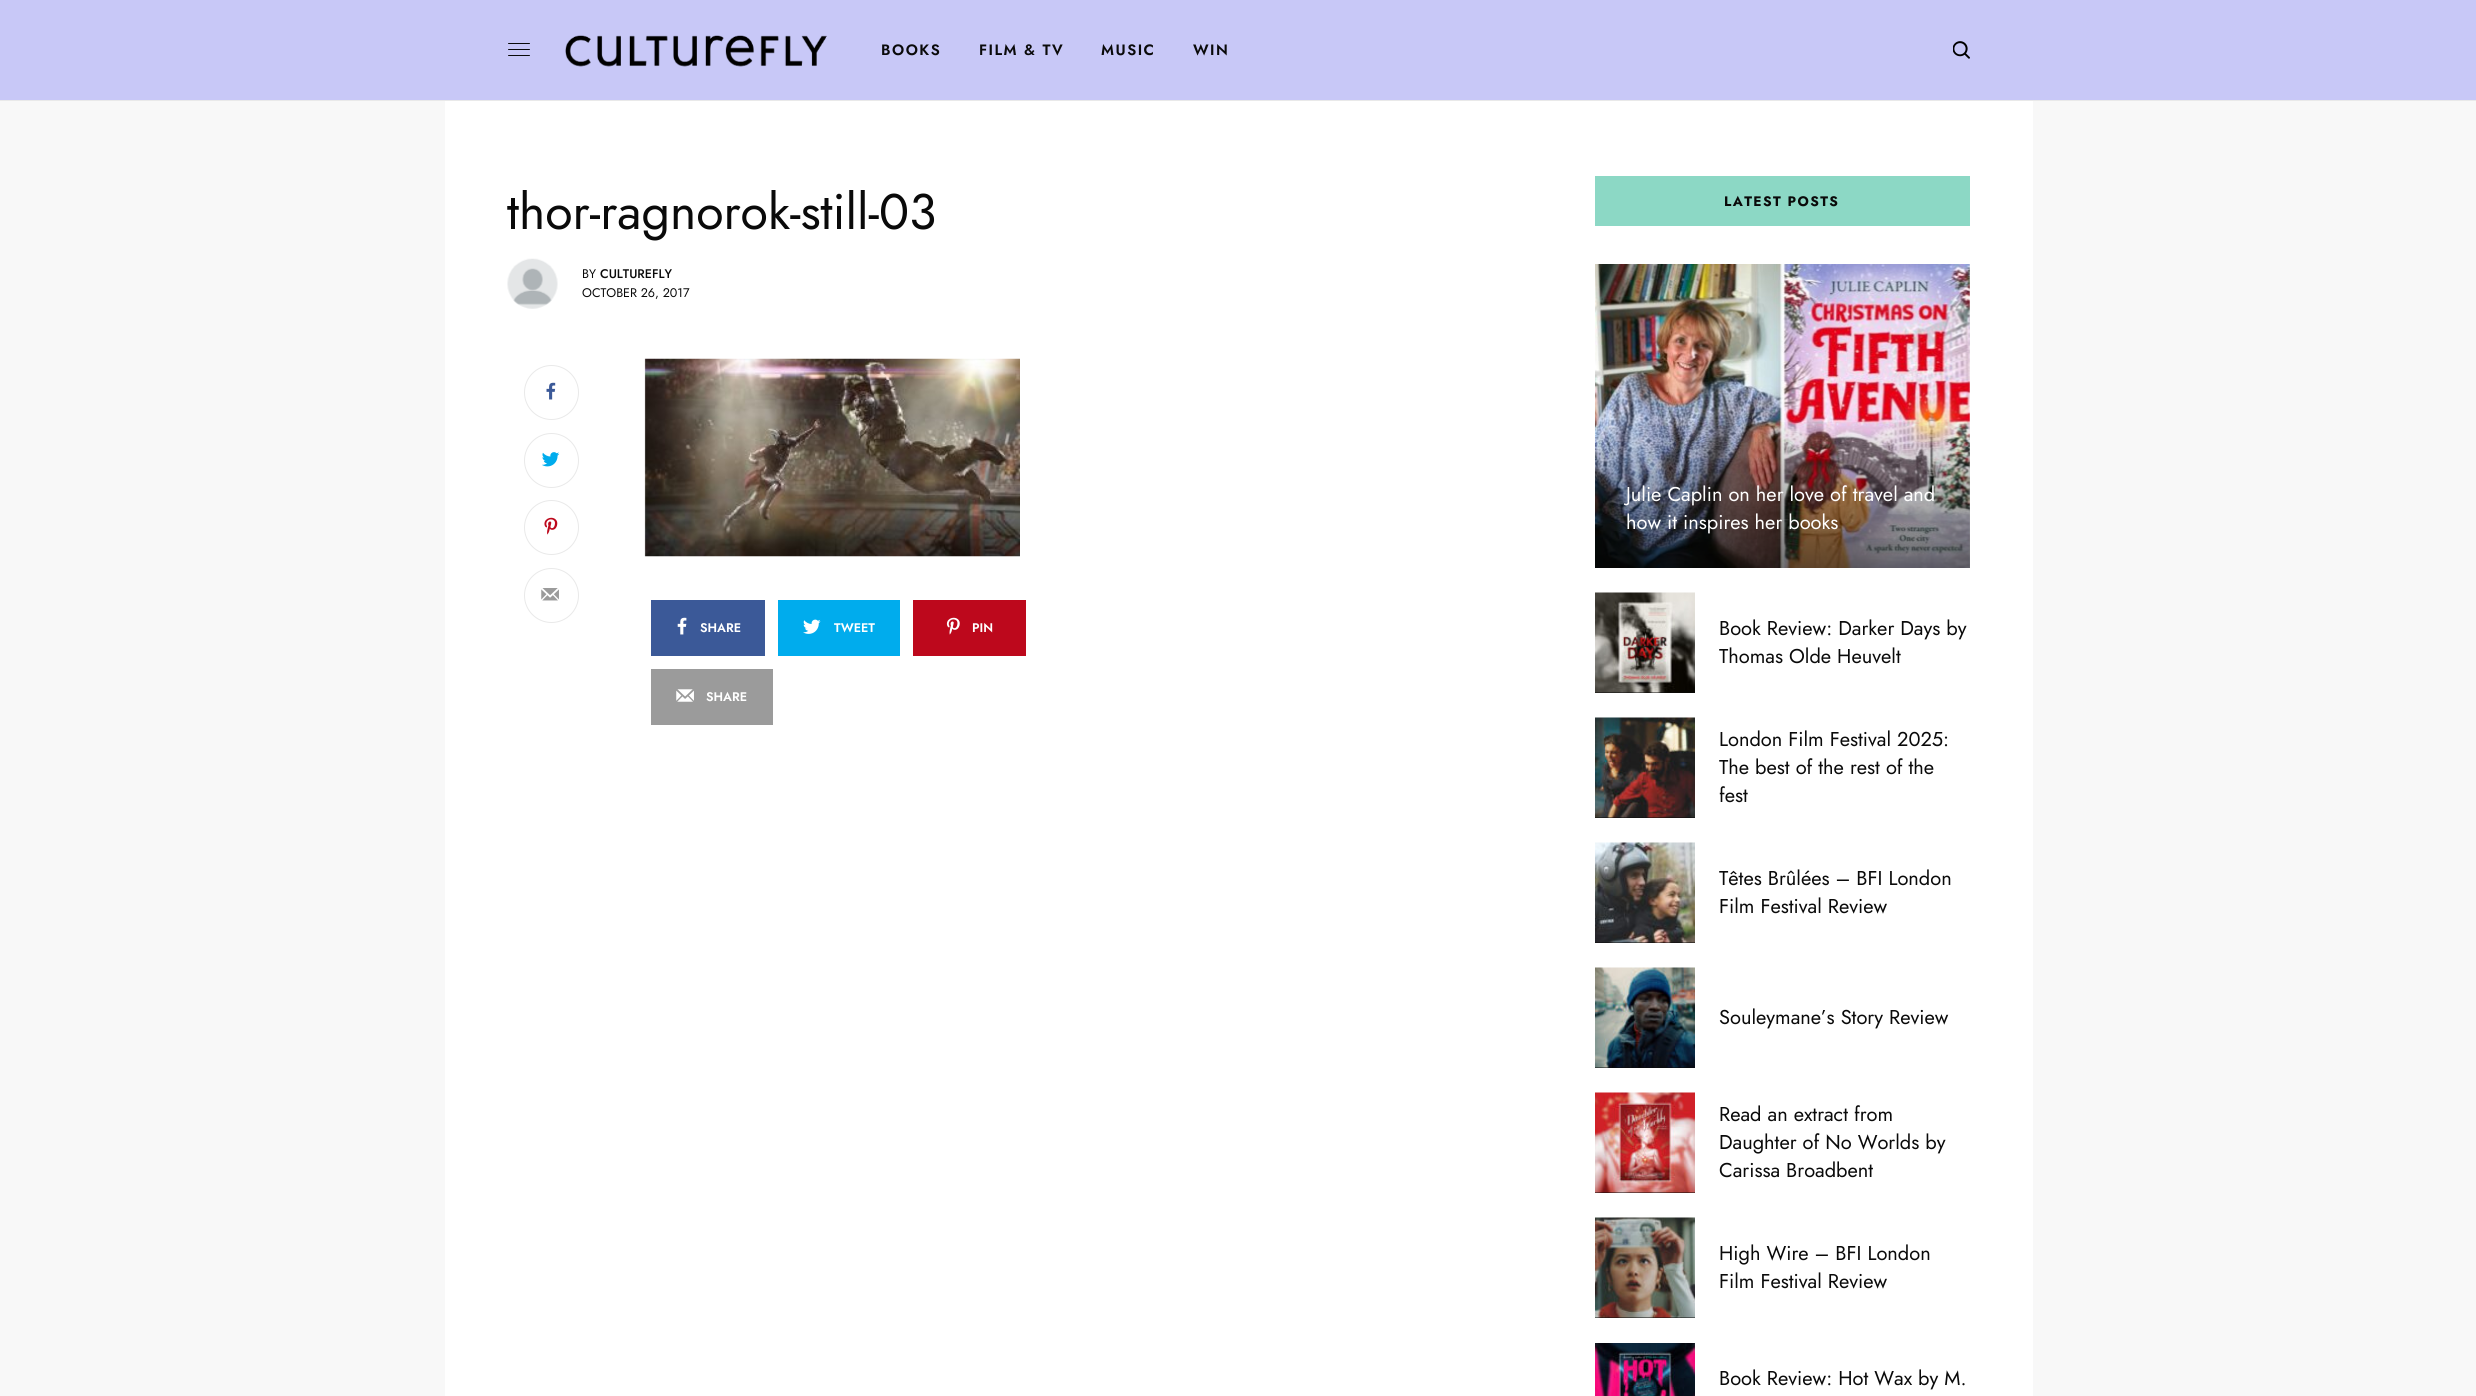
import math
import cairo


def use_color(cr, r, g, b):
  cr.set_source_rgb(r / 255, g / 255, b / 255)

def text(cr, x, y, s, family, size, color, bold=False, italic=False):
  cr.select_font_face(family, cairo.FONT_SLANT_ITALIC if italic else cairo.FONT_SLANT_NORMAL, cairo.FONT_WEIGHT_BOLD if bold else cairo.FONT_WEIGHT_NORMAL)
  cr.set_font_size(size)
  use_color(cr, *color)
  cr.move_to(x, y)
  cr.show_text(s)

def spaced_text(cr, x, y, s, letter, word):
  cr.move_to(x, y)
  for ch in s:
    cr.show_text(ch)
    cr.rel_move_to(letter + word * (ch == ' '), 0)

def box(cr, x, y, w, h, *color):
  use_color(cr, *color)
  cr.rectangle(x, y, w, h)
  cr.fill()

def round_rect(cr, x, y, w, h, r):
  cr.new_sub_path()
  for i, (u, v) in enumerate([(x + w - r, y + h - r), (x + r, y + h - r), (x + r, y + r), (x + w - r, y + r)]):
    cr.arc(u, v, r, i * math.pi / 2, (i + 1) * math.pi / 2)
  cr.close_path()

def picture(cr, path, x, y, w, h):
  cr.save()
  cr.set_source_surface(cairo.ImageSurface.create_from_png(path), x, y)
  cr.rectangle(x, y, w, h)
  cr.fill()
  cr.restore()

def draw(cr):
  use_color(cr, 248, 248, 248)
  cr.paint()
  box(cr, 0, 0, 2476, 100, 200, 200, 247)
  box(cr, 0, 100, 2476, 1, 233, 233, 233)
  use_color(cr, 10, 10, 10)
  round_rect(cr, 508, 43, 22, 1, 0.5)
  cr.fill()
  round_rect(cr, 508, 49, 22, 1, 0.5)
  cr.fill()
  round_rect(cr, 508, 55, 22, 1, 0.5)
  cr.fill()
  picture(cr, "img_01.png", 565, 35, 262, 32)
  picture(cr, "img_02.png", 1953, 41, 17, 18)
  box(cr, 445, 101, 1588, 1295, 255, 255, 255)
  picture(cr, "img_03.png", 507, 258, 51, 51)
  cr.arc(551.5, 392.5, 27, 0, 2 * math.pi)
  use_color(cr, 233, 233, 233)
  cr.set_line_width(1)
  cr.stroke()
  picture(cr, "img_04.png", 546, 382, 10, 18)
  cr.arc(551.5, 460.5, 27, 0, 2 * math.pi)
  cr.stroke()
  picture(cr, "img_05.png", 542, 452, 18, 15)
  cr.arc(551.5, 527.5, 27, 0, 2 * math.pi)
  cr.stroke()
  picture(cr, "img_06.png", 544, 517, 14, 18)
  cr.arc(551.5, 595.5, 27, 0, 2 * math.pi)
  cr.stroke()
  picture(cr, "img_07.png", 541, 588, 18, 13)
  picture(cr, "img_08.png", 644, 358, 376, 199)
  box(cr, 651, 600, 114, 56, 59, 89, 152)
  picture(cr, "img_09.png", 677, 617, 10, 18)
  box(cr, 778, 600, 122, 56, 0, 172, 237)
  picture(cr, "img_10.png", 803, 619, 18, 15)
  box(cr, 913, 600, 113, 56, 189, 8, 28)
  picture(cr, "img_11.png", 946, 617, 14, 18)
  box(cr, 651, 669, 122, 56, 155, 155, 155)
  picture(cr, "img_12.png", 676, 689, 18, 13)
  box(cr, 1595, 176, 375, 50, 140, 216, 197)
  picture(cr, "img_13.png", 1595, 264, 375, 304)
  gradient = cairo.LinearGradient(1783, 416, 1783, 568)
  gradient.add_color_stop_rgba(0, 0, 0, 0, 0)
  gradient.add_color_stop_rgba(1, 0, 0, 0, 0.55)
  cr.set_source(gradient)
  cr.rectangle(1595, 422, 375, 146)
  cr.fill()
  box(cr, 1595, 692, 100, 1, 10, 10, 10)
  picture(cr, "img_14.png", 1595, 592, 100, 101)
  box(cr, 1595, 817, 100, 1, 10, 10, 10)
  picture(cr, "img_15.png", 1595, 717, 100, 101)
  box(cr, 1595, 942, 100, 1, 10, 10, 10)
  picture(cr, "img_16.png", 1595, 842, 100, 101)
  box(cr, 1595, 1067, 100, 1, 10, 10, 10)
  picture(cr, "img_17.png", 1595, 967, 100, 101)
  box(cr, 1595, 1192, 100, 1, 10, 10, 10)
  picture(cr, "img_18.png", 1595, 1092, 100, 101)
  box(cr, 1595, 1317, 100, 1, 10, 10, 10)
  picture(cr, "img_19.png", 1595, 1217, 100, 101)
  picture(cr, "img_20.png", 1595, 1343, 100, 53)
  cr.select_font_face("Jost SemiBold")
  cr.set_font_size(15)
  spaced_text(cr, 881, 55, "BOOKS", 1.5, 0)
  spaced_text(cr, 979, 55, "FILM & TV", 1.5, 0)
  spaced_text(cr, 1101, 55, "MUSIC", 1.5, 0)
  spaced_text(cr, 1193, 55, "WIN", 1.5, 0)
  text(cr, 507, 229, "thor-ragnorok-still-03", "Jost", 50, (10, 10, 10))
  text(cr, 582, 278, "BY", "Jost", 12.5, (10, 10, 10))
  text(cr, 600, 278, "CULTUREFLY", "Jost Medium", 12.5, (10, 10, 10))
  text(cr, 582, 297, "OCTOBER 26, 2017", "Jost", 12.5, (10, 10, 10))
  text(cr, 700, 632, "SHARE", "Jost SemiBold", 12.5, (255, 255, 255))
  text(cr, 834, 632, "TWEET", "Jost SemiBold", 12.5, (255, 255, 255))
  text(cr, 972, 632, "PIN", "Jost SemiBold", 12.5, (255, 255, 255))
  text(cr, 706, 701, "SHARE", "Jost SemiBold", 12.5, (255, 255, 255))
  cr.select_font_face("Jost", cairo.FONT_SLANT_NORMAL, cairo.FONT_WEIGHT_BOLD)
  cr.set_font_size(13.75)
  use_color(cr, 10, 10, 10)
  spaced_text(cr, 1724, 206, "LATEST POSTS", 1.4, 0)
  text(cr, 1626, 501, "Julie Caplin on her love of travel and", "Jost", 20, (255, 255, 255))
  text(cr, 1626, 529, "how it inspires her books", "Jost", 20, (255, 255, 255))
  text(cr, 1719, 635, "Book Review: Darker Days by", "Jost", 20, (10, 10, 10))
  text(cr, 1719, 663, "Thomas Olde Heuvelt", "Jost", 20, (10, 10, 10))
  text(cr, 1719, 746, "London Film Festival 2025:", "Jost", 20, (10, 10, 10))
  text(cr, 1719, 774, "The best of the rest of the", "Jost", 20, (10, 10, 10))
  text(cr, 1719, 802, "fest", "Jost", 20, (10, 10, 10))
  text(cr, 1719, 885, "Têtes Brûlées – BFI London", "Jost", 20, (10, 10, 10))
  text(cr, 1719, 913, "Film Festival Review", "Jost", 20, (10, 10, 10))
  text(cr, 1719, 1024, "Souleymane’s Story Review", "Jost", 20, (10, 10, 10))
  text(cr, 1719, 1121, "Read an extract from", "Jost", 20, (10, 10, 10))
  text(cr, 1719, 1149, "Daughter of No Worlds by", "Jost", 20, (10, 10, 10))
  text(cr, 1719, 1177, "Carissa Broadbent", "Jost", 20, (10, 10, 10))
  text(cr, 1719, 1260, "High Wire – BFI London", "Jost", 20, (10, 10, 10))
  text(cr, 1719, 1288, "Film Festival Review", "Jost", 20, (10, 10, 10))
  text(cr, 1719, 1385, "Book Review: Hot Wax by M.", "Jost", 20, (10, 10, 10))


surface = cairo.ImageSurface(cairo.FORMAT_RGB24, 2476, 1396)
cr = cairo.Context(surface)
options = cairo.FontOptions()
options.set_hint_metrics(cairo.HINT_METRICS_OFF)
options.set_hint_style(cairo.HINT_STYLE_NONE)
cr.set_font_options(options)
cr.set_miter_limit(4)
draw(cr)
surface.write_to_png("out.png")
